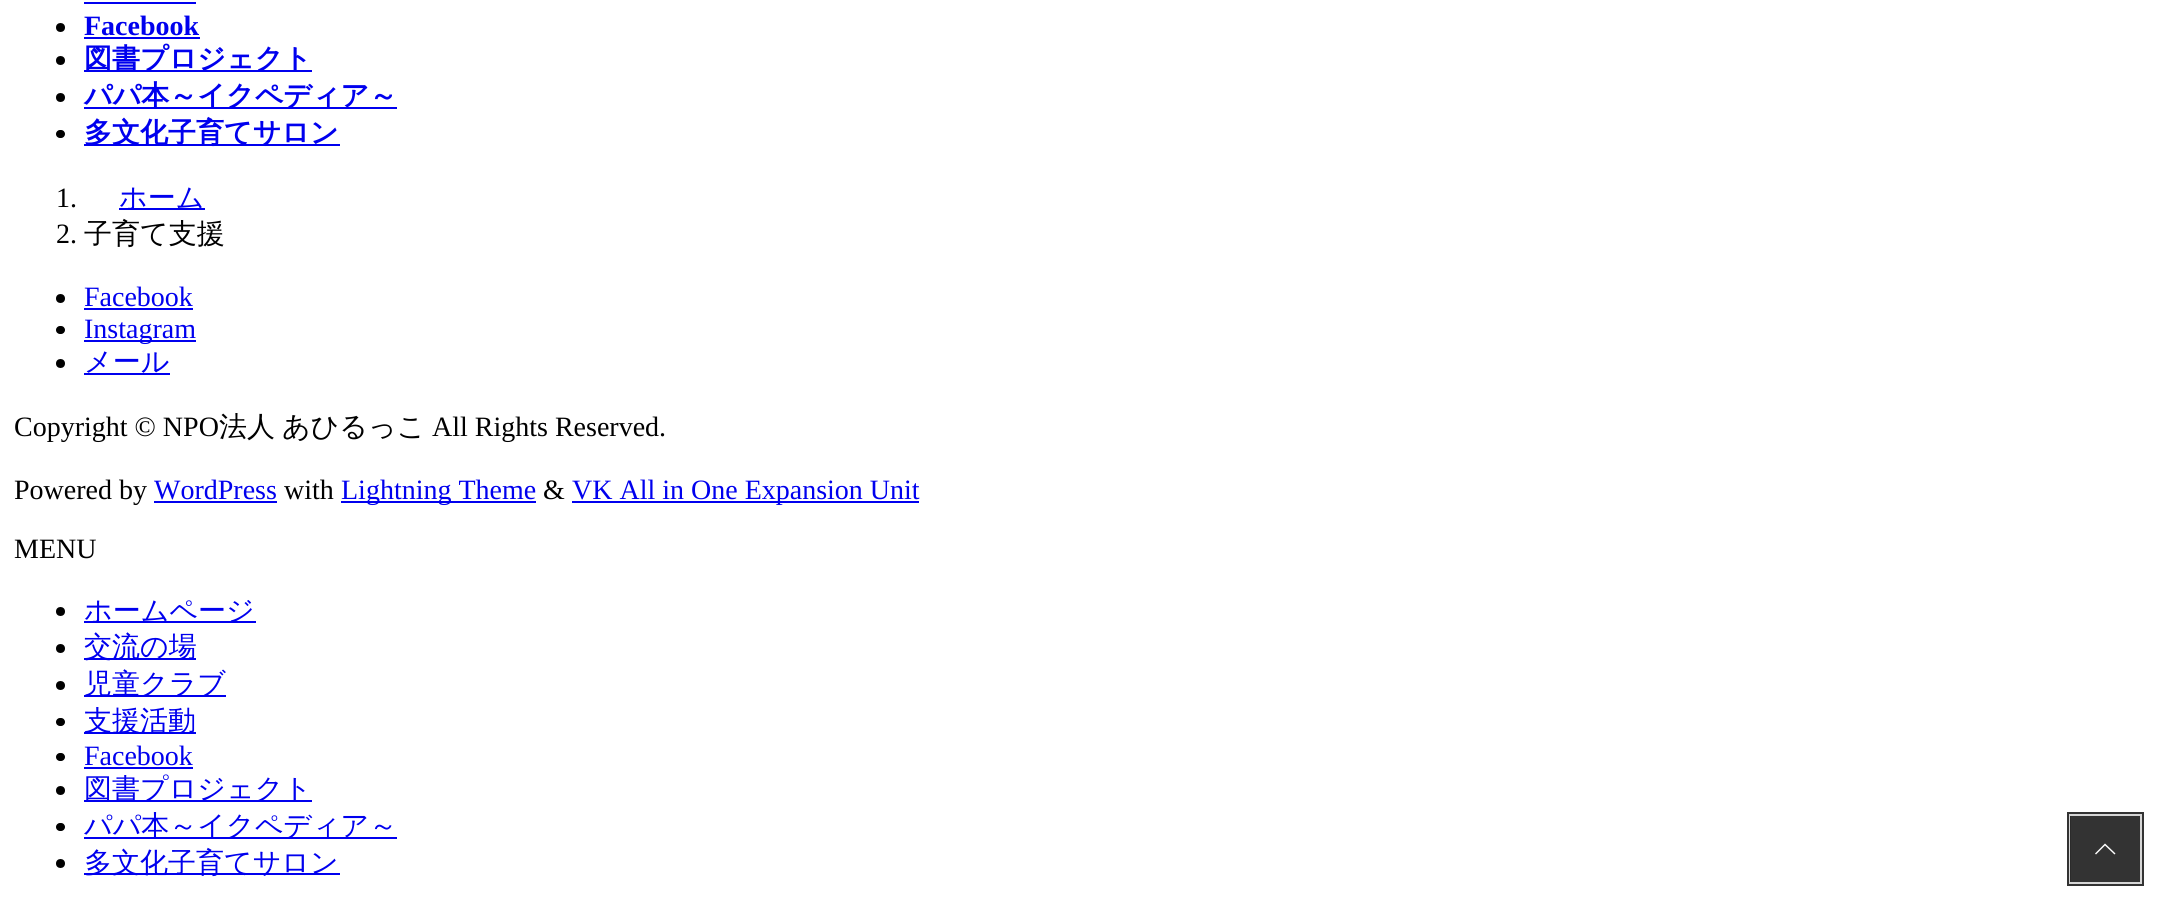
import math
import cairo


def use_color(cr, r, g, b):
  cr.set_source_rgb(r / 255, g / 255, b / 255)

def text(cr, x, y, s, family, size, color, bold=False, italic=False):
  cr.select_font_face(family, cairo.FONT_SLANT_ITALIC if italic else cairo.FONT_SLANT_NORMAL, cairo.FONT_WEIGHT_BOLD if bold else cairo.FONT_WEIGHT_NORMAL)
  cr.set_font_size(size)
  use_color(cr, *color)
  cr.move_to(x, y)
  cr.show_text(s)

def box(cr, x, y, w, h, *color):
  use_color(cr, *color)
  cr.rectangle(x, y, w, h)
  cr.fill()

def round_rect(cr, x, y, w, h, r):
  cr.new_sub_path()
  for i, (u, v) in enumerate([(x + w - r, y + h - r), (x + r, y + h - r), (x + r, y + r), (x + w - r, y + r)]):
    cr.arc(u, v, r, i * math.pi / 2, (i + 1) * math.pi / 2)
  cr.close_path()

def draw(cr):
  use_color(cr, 255, 255, 255)
  cr.paint()
  box(cr, 84, 2, 112, 2, 0, 0, 238)
  use_color(cr, 0, 0, 0)
  cr.arc(60.5, 27.5, 4.5, 0, 2 * math.pi)
  cr.fill()
  box(cr, 84, 37, 116, 2, 0, 0, 238)
  use_color(cr, 0, 0, 0)
  cr.arc(60.5, 60.5, 4.5, 0, 2 * math.pi)
  cr.fill()
  box(cr, 84, 70, 228, 2, 0, 0, 238)
  use_color(cr, 0, 0, 0)
  cr.arc(60.5, 97.5, 4.5, 0, 2 * math.pi)
  cr.fill()
  box(cr, 84, 107, 313, 2, 0, 0, 238)
  use_color(cr, 0, 0, 0)
  round_rect(cr, 56, 130, 9, 8, 4)
  cr.fill()
  box(cr, 84, 144, 256, 2, 0, 0, 238)
  box(cr, 119, 208, 86, 2, 0, 0, 238)
  use_color(cr, 0, 0, 0)
  cr.arc(60.5, 298.5, 4.5, 0, 2 * math.pi)
  cr.fill()
  box(cr, 84, 308, 109, 2, 0, 0, 238)
  use_color(cr, 0, 0, 0)
  round_rect(cr, 56, 326, 9, 8, 4)
  cr.fill()
  box(cr, 84, 340, 112, 2, 0, 0, 238)
  use_color(cr, 0, 0, 0)
  cr.arc(60.5, 363.5, 4.5, 0, 2 * math.pi)
  cr.fill()
  box(cr, 84, 373, 86, 2, 0, 0, 238)
  box(cr, 154, 501, 123, 2, 0, 0, 238)
  box(cr, 341, 501, 195, 2, 0, 0, 238)
  box(cr, 572, 501, 347, 2, 0, 0, 238)
  use_color(cr, 0, 0, 0)
  cr.arc(60.5, 611.5, 4.5, 0, 2 * math.pi)
  cr.fill()
  box(cr, 84, 621, 172, 2, 0, 0, 238)
  use_color(cr, 0, 0, 0)
  cr.arc(60.5, 648.5, 4.5, 0, 2 * math.pi)
  cr.fill()
  box(cr, 84, 658, 112, 2, 0, 0, 238)
  use_color(cr, 0, 0, 0)
  cr.arc(60.5, 685.5, 4.5, 0, 2 * math.pi)
  cr.fill()
  box(cr, 84, 695, 142, 2, 0, 0, 238)
  use_color(cr, 0, 0, 0)
  round_rect(cr, 56, 718, 9, 8, 4)
  cr.fill()
  box(cr, 84, 732, 112, 2, 0, 0, 238)
  use_color(cr, 0, 0, 0)
  round_rect(cr, 56, 753, 9, 8, 4)
  cr.fill()
  box(cr, 84, 767, 109, 2, 0, 0, 238)
  use_color(cr, 0, 0, 0)
  cr.arc(60.5, 790.5, 4.5, 0, 2 * math.pi)
  cr.fill()
  box(cr, 84, 800, 228, 2, 0, 0, 238)
  use_color(cr, 0, 0, 0)
  round_rect(cr, 56, 823, 9, 8, 4)
  cr.fill()
  box(cr, 84, 837, 313, 2, 0, 0, 238)
  use_color(cr, 0, 0, 0)
  cr.arc(60.5, 863.5, 4.5, 0, 2 * math.pi)
  cr.fill()
  box(cr, 84, 873, 256, 2, 0, 0, 238)
  cr.rectangle(2069, 814, 73, 70)
  use_color(cr, 51, 51, 51)
  cr.set_line_width(4)
  cr.stroke()
  cr.rectangle(2070, 815, 71, 68)
  use_color(cr, 214, 214, 214)
  cr.set_line_width(2)
  cr.stroke()
  cr.set_source_rgba(0, 0, 0, 0.8)
  cr.rectangle(2070, 816, 70, 66)
  cr.fill()
  use_color(cr, 255, 255, 255)
  cr.new_path()
  cr.move_to(2115.5, 853.5)
  cr.line_to(2114.5, 854.5)
  cr.line_to(2105, 845.5)
  cr.line_to(2096, 854.5)
  cr.line_to(2095, 853.5)
  cr.line_to(2105, 843.5)
  cr.close_path()
  cr.fill()
  text(cr, 84, 35, "Facebook", "Liberation Serif", 28, (0, 0, 238), bold=True)
  text(cr, 84, 68, "図書プロジェクト", "WenQuanYi Zen Hei", 28, (0, 0, 238), bold=True)
  text(cr, 84, 105, "パパ本～イクペディア～", "WenQuanYi Zen Hei", 28, (0, 0, 238), bold=True)
  text(cr, 84, 142, "多文化子育てサロン", "WenQuanYi Zen Hei", 28, (0, 0, 238), bold=True)
  text(cr, 56, 207, "1.", "Liberation Serif", 28, (0, 0, 0))
  text(cr, 119, 207, "ホーム", "WenQuanYi Zen Hei Medium", 28, (0, 0, 238))
  text(cr, 56, 243, "2.", "Liberation Serif", 28, (0, 0, 0))
  text(cr, 84, 243, "子育て支援", "WenQuanYi Zen Hei Medium", 28, (0, 0, 0))
  text(cr, 84, 306, "Facebook", "Liberation Serif", 28, (0, 0, 238))
  text(cr, 84, 338, "Instagram", "Liberation Serif", 28, (0, 0, 238))
  text(cr, 84, 371, "メール", "WenQuanYi Zen Hei Medium", 28, (0, 0, 238))
  text(cr, 14, 436, "Copyright © NPO", "Liberation Serif", 28, (0, 0, 0))
  text(cr, 219, 436, "法人", "WenQuanYi Zen Hei Medium", 28, (0, 0, 0))
  text(cr, 282, 436, "あひるっこ", "WenQuanYi Zen Hei Medium", 28, (0, 0, 0))
  text(cr, 432, 436, "All Rights Reserved.", "Liberation Serif", 28, (0, 0, 0))
  text(cr, 14, 499, "Powered by", "Liberation Serif", 28, (0, 0, 0))
  text(cr, 154, 499, "WordPress", "Liberation Serif", 28, (0, 0, 238))
  text(cr, 284, 499, "with", "Liberation Serif", 28, (0, 0, 0))
  text(cr, 341, 499, "Lightning Theme", "Liberation Serif", 28, (0, 0, 238))
  text(cr, 543, 499, "&", "Liberation Serif", 28, (0, 0, 0))
  text(cr, 572, 499, "VK All in One Expansion Unit", "Liberation Serif", 28, (0, 0, 238))
  text(cr, 14, 558, "MENU", "Liberation Serif", 28, (0, 0, 0))
  text(cr, 84, 620, "ホームページ", "WenQuanYi Zen Hei Medium", 28, (0, 0, 238))
  text(cr, 84, 656, "交流の場", "WenQuanYi Zen Hei Medium", 28, (0, 0, 238))
  text(cr, 84, 693, "児童クラブ", "WenQuanYi Zen Hei Medium", 28, (0, 0, 238))
  text(cr, 84, 730, "支援活動", "WenQuanYi Zen Hei Medium", 28, (0, 0, 238))
  text(cr, 84, 765, "Facebook", "Liberation Serif", 28, (0, 0, 238))
  text(cr, 84, 798, "図書プロジェクト", "WenQuanYi Zen Hei Medium", 28, (0, 0, 238))
  text(cr, 84, 835, "パパ本～イクペディア～", "WenQuanYi Zen Hei Medium", 28, (0, 0, 238))
  text(cr, 84, 872, "多文化子育てサロン", "WenQuanYi Zen Hei Medium", 28, (0, 0, 238))


surface = cairo.ImageSurface(cairo.FORMAT_RGB24, 2184, 910)
cr = cairo.Context(surface)
options = cairo.FontOptions()
options.set_hint_metrics(cairo.HINT_METRICS_OFF)
options.set_hint_style(cairo.HINT_STYLE_NONE)
cr.set_font_options(options)
cr.set_miter_limit(4)
draw(cr)
surface.write_to_png("out.png")
